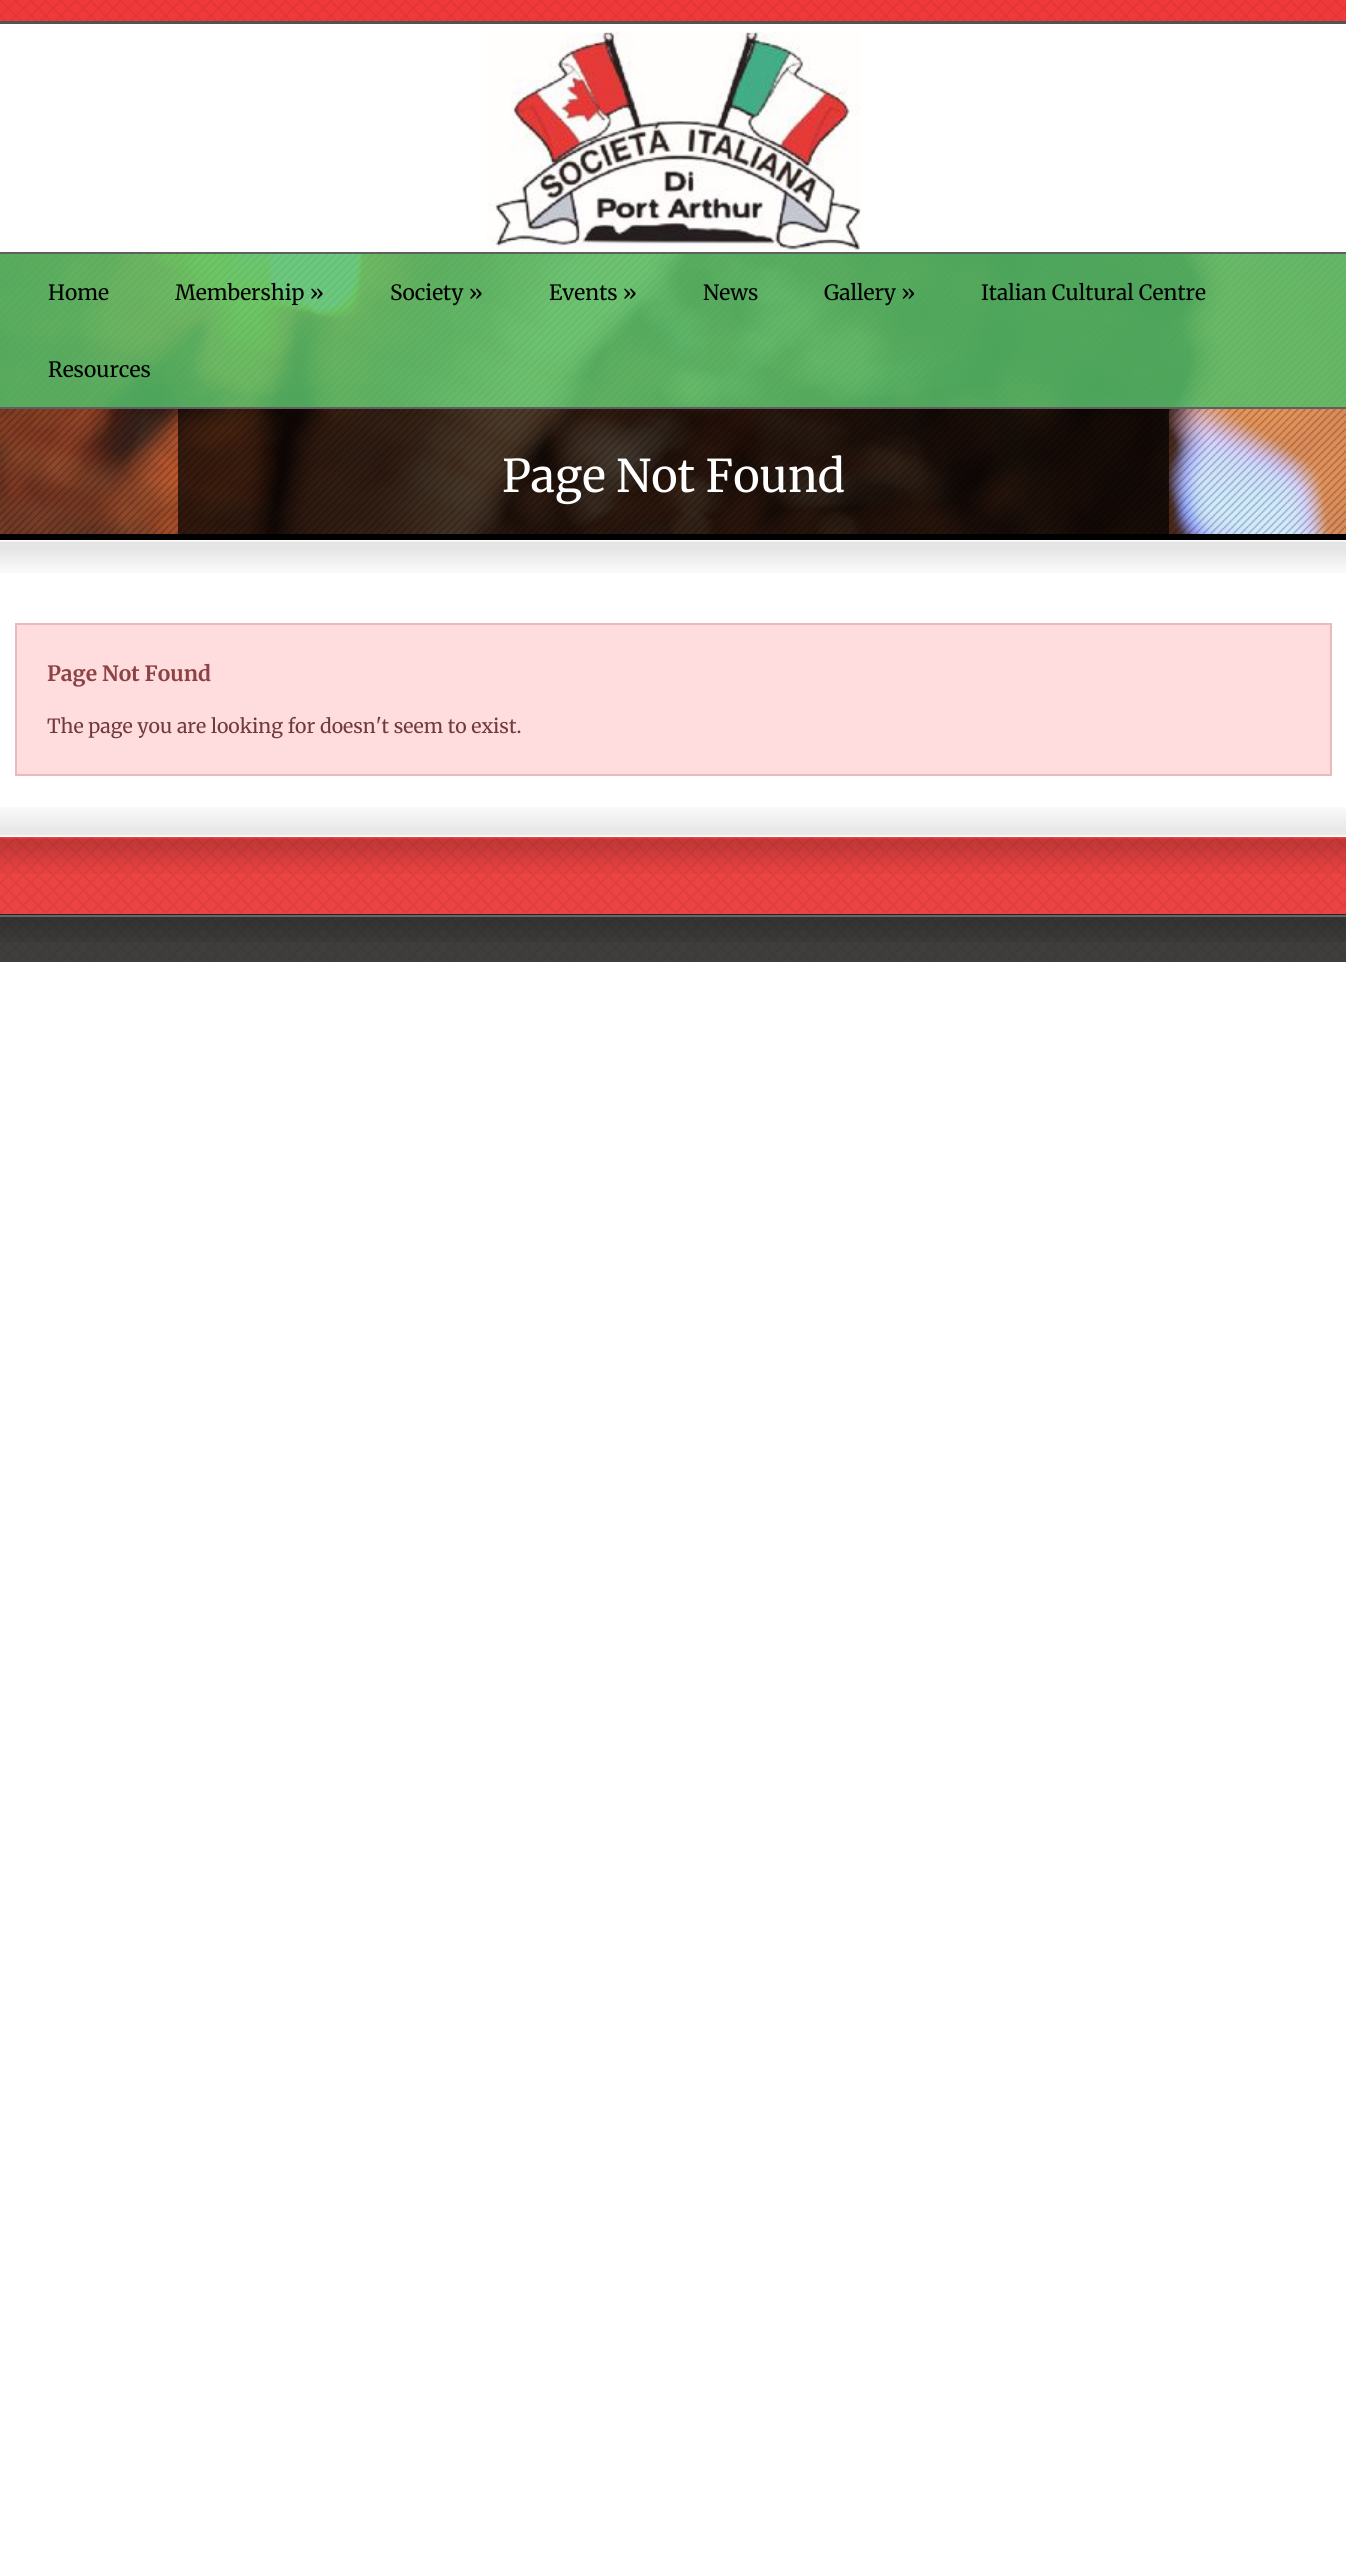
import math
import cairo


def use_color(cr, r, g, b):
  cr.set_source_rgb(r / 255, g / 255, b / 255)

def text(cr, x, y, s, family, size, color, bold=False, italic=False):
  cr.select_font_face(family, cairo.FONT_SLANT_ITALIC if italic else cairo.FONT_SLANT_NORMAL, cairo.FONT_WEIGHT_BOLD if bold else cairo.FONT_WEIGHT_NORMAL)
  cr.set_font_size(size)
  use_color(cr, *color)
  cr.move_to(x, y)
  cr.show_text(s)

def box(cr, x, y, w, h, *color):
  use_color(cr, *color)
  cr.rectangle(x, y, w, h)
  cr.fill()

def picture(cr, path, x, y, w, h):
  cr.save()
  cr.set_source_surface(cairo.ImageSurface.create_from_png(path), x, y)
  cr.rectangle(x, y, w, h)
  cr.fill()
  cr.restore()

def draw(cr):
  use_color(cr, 255, 255, 255)
  cr.paint()
  box(cr, 0, 0, 1346, 21, 240, 57, 57)
  picture(cr, "img_01.png", 0, 0, 1346, 21)
  box(cr, 0, 21, 1346, 3, 83, 83, 83)
  picture(cr, "img_02.png", 487, 31, 374, 221)
  picture(cr, "img_03.png", 0, 254, 1346, 280)
  picture(cr, "img_04.png", 0, 254, 1346, 280)
  box(cr, 0, 252, 1346, 2, 95, 95, 95)
  box(cr, 0, 407, 1346, 2, 95, 95, 95)
  cr.set_source_rgba(0.329, 0.749, 0.412, 0.85)
  cr.rectangle(0, 254, 1346, 153)
  cr.fill()
  box(cr, 0, 534, 1346, 6, 0, 0, 0)
  cr.set_source_rgba(0, 0, 0, 0.7)
  cr.rectangle(178, 409, 991, 125)
  cr.fill()
  picture(cr, "img_05.png", 0, 541, 1346, 32)
  picture(cr, "img_06.png", 0, 807, 1346, 29)
  use_color(cr, 255, 220, 221)
  cr.rectangle(16, 624, 1315, 151)
  cr.fill_preserve()
  use_color(cr, 233, 185, 187)
  cr.stroke()
  box(cr, 0, 837, 1346, 77, 236, 67, 67)
  picture(cr, "img_07.png", 0, 837, 1346, 77)
  picture(cr, "img_08.png", 0, 838, 1346, 36)
  box(cr, 0, 917, 1346, 45, 64, 62, 60)
  picture(cr, "img_09.png", 0, 917, 1346, 25)
  box(cr, 0, 914, 1346, 1, 36, 36, 36)
  picture(cr, "img_10.png", 0, 918, 1345, 43)
  box(cr, 0, 915, 1346, 2, 102, 102, 102)
  text(cr, 48, 300, "Home", "Merriweather", 21, (0, 0, 0))
  text(cr, 175, 300, "Membership »", "Merriweather", 21, (0, 0, 0))
  text(cr, 390, 300, "Society »", "Merriweather", 21, (0, 0, 0))
  text(cr, 549, 300, "Events »", "Merriweather", 21, (0, 0, 0))
  text(cr, 703, 300, "News", "Merriweather", 21, (0, 0, 0))
  text(cr, 824, 300, "Gallery »", "Merriweather", 21, (0, 0, 0))
  text(cr, 981, 300, "Italian Cultural Centre", "Merriweather", 21, (0, 0, 0))
  text(cr, 48, 377, "Resources", "Merriweather", 21, (0, 0, 0))
  text(cr, 502, 492, "Page Not Found", "Merriweather", 45, (255, 255, 255))
  text(cr, 47, 681, "Page Not Found", "Merriweather", 21, (141, 67, 69), bold=True)
  text(cr, 47, 733, "The page you are looking for doesn't seem to exist.", "Merriweather", 19.5, (113, 58, 60))


surface = cairo.ImageSurface(cairo.FORMAT_RGB24, 1346, 2550)
cr = cairo.Context(surface)
options = cairo.FontOptions()
options.set_hint_metrics(cairo.HINT_METRICS_OFF)
options.set_hint_style(cairo.HINT_STYLE_NONE)
cr.set_font_options(options)
cr.set_miter_limit(4)
draw(cr)
surface.write_to_png("out.png")
